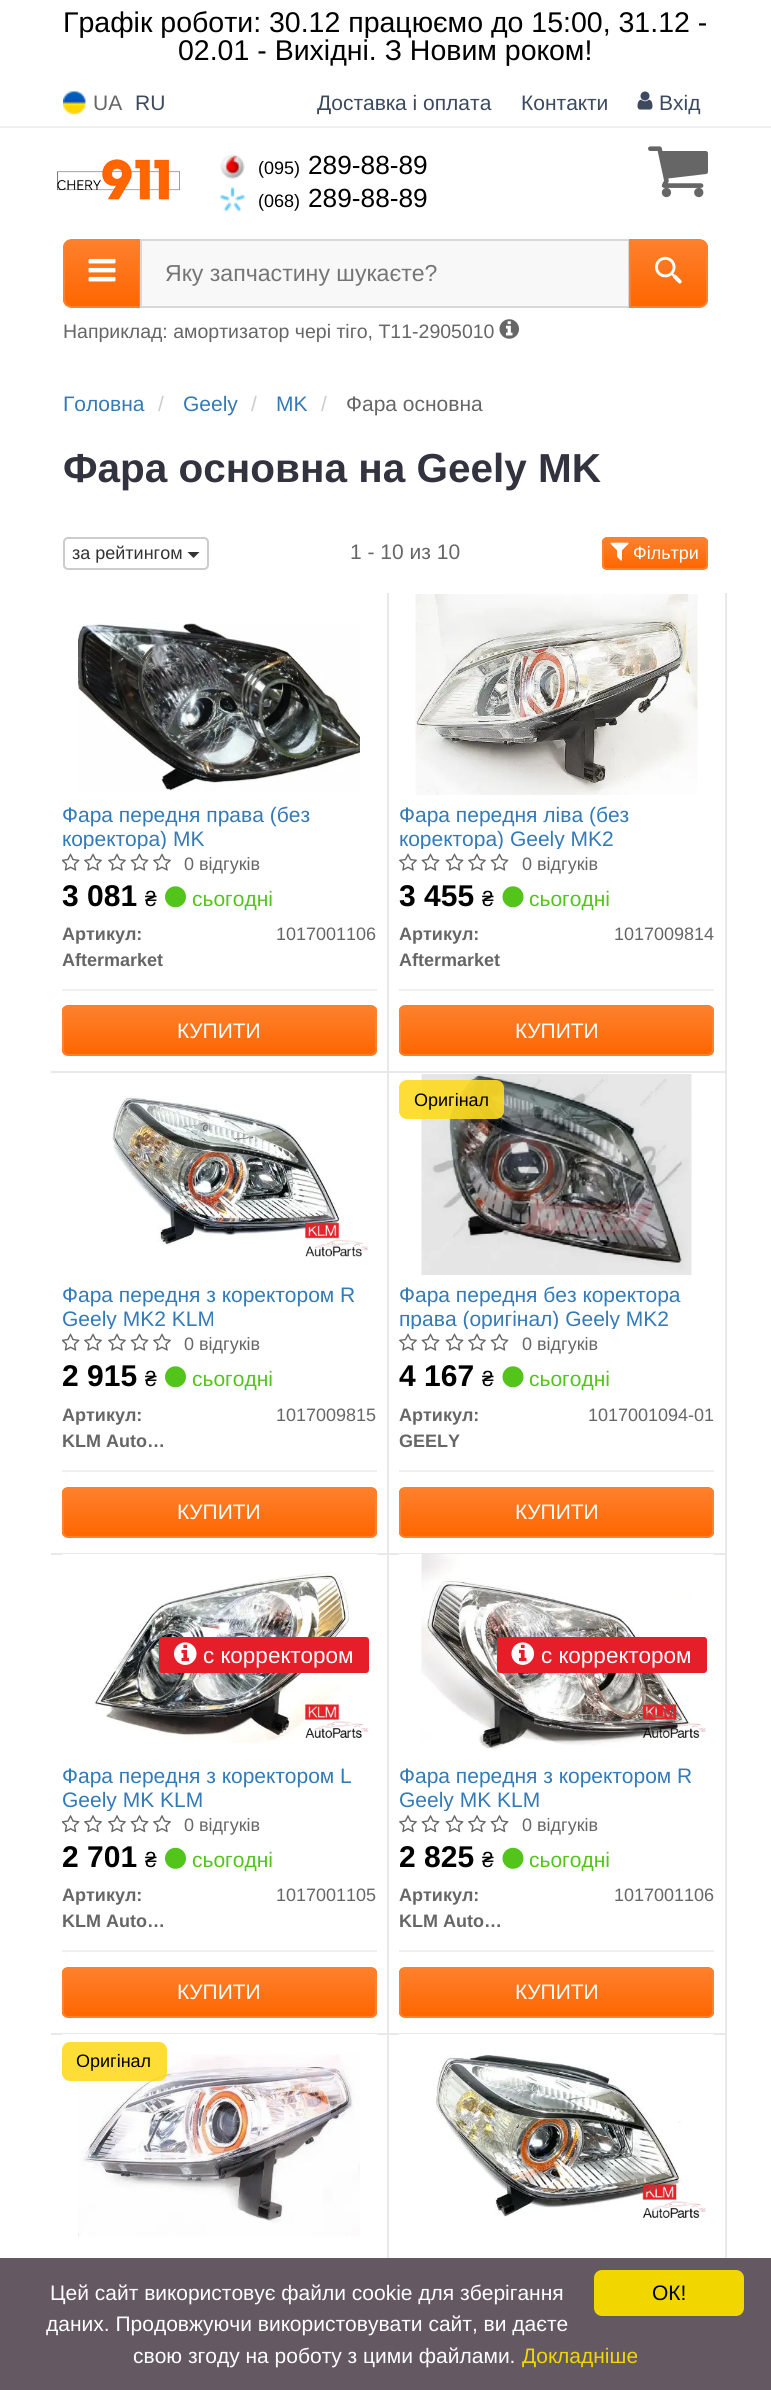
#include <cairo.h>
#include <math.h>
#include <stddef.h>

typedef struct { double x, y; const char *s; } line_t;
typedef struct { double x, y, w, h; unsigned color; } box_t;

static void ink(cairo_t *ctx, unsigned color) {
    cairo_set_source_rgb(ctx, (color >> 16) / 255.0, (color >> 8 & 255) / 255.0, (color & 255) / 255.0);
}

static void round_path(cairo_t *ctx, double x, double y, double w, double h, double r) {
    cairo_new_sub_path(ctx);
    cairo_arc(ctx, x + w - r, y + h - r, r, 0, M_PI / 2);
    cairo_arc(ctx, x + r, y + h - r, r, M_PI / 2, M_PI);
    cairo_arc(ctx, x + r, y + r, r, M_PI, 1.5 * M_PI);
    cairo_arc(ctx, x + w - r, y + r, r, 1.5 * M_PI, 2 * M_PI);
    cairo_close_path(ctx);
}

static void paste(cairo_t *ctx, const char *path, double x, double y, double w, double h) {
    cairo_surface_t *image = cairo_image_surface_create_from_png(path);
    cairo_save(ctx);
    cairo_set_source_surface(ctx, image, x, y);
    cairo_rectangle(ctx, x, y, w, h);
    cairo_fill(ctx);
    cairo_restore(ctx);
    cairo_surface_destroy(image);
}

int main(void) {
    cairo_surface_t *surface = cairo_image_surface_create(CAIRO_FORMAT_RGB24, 771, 2390);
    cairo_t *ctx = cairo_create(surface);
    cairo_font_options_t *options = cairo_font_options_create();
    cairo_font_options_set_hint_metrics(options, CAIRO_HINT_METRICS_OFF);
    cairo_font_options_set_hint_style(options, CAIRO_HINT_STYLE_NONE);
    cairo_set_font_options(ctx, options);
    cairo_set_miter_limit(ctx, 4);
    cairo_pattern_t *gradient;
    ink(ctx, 0xFFFFFF);
    cairo_paint(ctx);
    cairo_select_font_face(ctx, "Liberation Sans", CAIRO_FONT_SLANT_NORMAL, CAIRO_FONT_WEIGHT_NORMAL);
    cairo_set_font_size(ctx, 28.5);
    ink(ctx, 0x000000);
    cairo_move_to(ctx, 63, 32);
    cairo_show_text(ctx, "Графік роботи: 30.12 працюємо до 15:00, 31.12 -");
    cairo_move_to(ctx, 178, 60);
    cairo_show_text(ctx, "02.01 - Вихідні. З Новим роком!");
    ink(ctx, 0xEFEFEF);
    cairo_rectangle(ctx, 0, 126, 771, 2);
    cairo_fill(ctx);
    paste(ctx, "media/1.png", 63, 91, 23, 24);
    cairo_set_font_size(ctx, 21);
    ink(ctx, 0x666666);
    cairo_move_to(ctx, 93, 110);
    cairo_show_text(ctx, "UA");
    ink(ctx, 0x3C495F);
    {
        static const line_t items[] = {
            {135, 110, "RU"},
            {317, 110, "Доставка і оплата"},
            {521, 110, "Контакти"},
        };
        for (size_t i = 0; i < sizeof items / sizeof *items; i++) {
            cairo_move_to(ctx, items[i].x, items[i].y);
            cairo_show_text(ctx, items[i].s);
        }
    }
    paste(ctx, "media/2.png", 637, 91, 16, 19);
    cairo_move_to(ctx, 659, 110);
    cairo_show_text(ctx, "Вхід");
    paste(ctx, "media/3.png", 57, 159, 123, 41);
    paste(ctx, "media/4.png", 220, 154, 25, 25);
    cairo_set_font_size(ctx, 18);
    ink(ctx, 0x000000);
    cairo_move_to(ctx, 258, 174);
    cairo_show_text(ctx, "(095)");
    cairo_set_font_size(ctx, 26.25);
    cairo_move_to(ctx, 308, 174);
    cairo_show_text(ctx, "289-88-89");
    paste(ctx, "media/5.png", 220, 187, 25, 25);
    cairo_set_font_size(ctx, 18);
    cairo_move_to(ctx, 258, 207);
    cairo_show_text(ctx, "(068)");
    cairo_set_font_size(ctx, 26.25);
    cairo_move_to(ctx, 308, 207);
    cairo_show_text(ctx, "289-88-89");
    paste(ctx, "media/6.png", 648, 146, 60, 52);
    cairo_save(ctx);
    cairo_new_path(ctx);
    cairo_move_to(ctx, 72, 239);
    cairo_line_to(ctx, 141, 239);
    cairo_line_to(ctx, 141, 308);
    cairo_line_to(ctx, 72, 308);
    cairo_curve_to(ctx, 67, 308, 63, 304, 63, 299);
    cairo_line_to(ctx, 63, 248);
    cairo_curve_to(ctx, 63, 243, 67, 239, 72, 239);
    cairo_close_path(ctx);
    cairo_clip(ctx);
    gradient = cairo_pattern_create_linear(102, 240, 102, 306);
    cairo_pattern_add_color_stop_rgba(gradient, 0, 0.992, 0.502, 0.176, 1);
    cairo_pattern_add_color_stop_rgba(gradient, 1, 1, 0.4, 0, 1);
    cairo_set_source(ctx, gradient);
    cairo_pattern_destroy(gradient);
    cairo_rectangle(ctx, 63, 240, 76, 66);
    cairo_fill(ctx);
    cairo_restore(ctx);
    cairo_new_path(ctx);
    cairo_move_to(ctx, 72, 240);
    cairo_line_to(ctx, 140, 240);
    cairo_line_to(ctx, 140, 307);
    cairo_line_to(ctx, 72, 307);
    cairo_curve_to(ctx, 67.5, 307, 64, 303.5, 64, 299);
    cairo_line_to(ctx, 64, 248);
    cairo_curve_to(ctx, 64, 243.5, 67.5, 240, 72, 240);
    cairo_close_path(ctx);
    ink(ctx, 0xFD802D);
    cairo_stroke(ctx);
    paste(ctx, "media/7.png", 88, 258, 28, 24);
    ink(ctx, 0xF8F8F8);
    cairo_rectangle(ctx, 141, 240, 488, 67);
    cairo_fill_preserve(ctx);
    ink(ctx, 0xD8D8D8);
    cairo_stroke(ctx);
    cairo_set_font_size(ctx, 23.1);
    ink(ctx, 0x757575);
    cairo_move_to(ctx, 165, 281);
    cairo_show_text(ctx, "Яку запчастину шукаєте?");
    cairo_save(ctx);
    cairo_new_path(ctx);
    cairo_move_to(ctx, 629, 239);
    cairo_line_to(ctx, 699, 239);
    cairo_curve_to(ctx, 704, 239, 708, 243, 708, 248);
    cairo_line_to(ctx, 708, 299);
    cairo_curve_to(ctx, 708, 304, 704, 308, 699, 308);
    cairo_line_to(ctx, 629, 308);
    cairo_close_path(ctx);
    cairo_clip(ctx);
    gradient = cairo_pattern_create_linear(668, 240, 668, 306);
    cairo_pattern_add_color_stop_rgba(gradient, 0, 0.992, 0.502, 0.176, 1);
    cairo_pattern_add_color_stop_rgba(gradient, 1, 1, 0.4, 0, 1);
    cairo_set_source(ctx, gradient);
    cairo_pattern_destroy(gradient);
    cairo_rectangle(ctx, 631, 240, 77, 66);
    cairo_fill(ctx);
    cairo_restore(ctx);
    cairo_new_path(ctx);
    cairo_move_to(ctx, 630, 240);
    cairo_line_to(ctx, 699, 240);
    cairo_curve_to(ctx, 703.5, 240, 707, 243.5, 707, 248);
    cairo_line_to(ctx, 707, 299);
    cairo_curve_to(ctx, 707, 303.5, 703.5, 307, 699, 307);
    cairo_line_to(ctx, 630, 307);
    cairo_close_path(ctx);
    ink(ctx, 0xFD802D);
    cairo_stroke(ctx);
    paste(ctx, "media/8.png", 655, 256, 27, 28);
    cairo_set_font_size(ctx, 19.5);
    ink(ctx, 0x666666);
    cairo_move_to(ctx, 63, 338);
    cairo_show_text(ctx, "Наприклад: амортизатор чері тіго, T11-2905010");
    paste(ctx, "media/9.png", 499, 319, 20, 20);
    cairo_set_font_size(ctx, 21);
    ink(ctx, 0x337AB7);
    cairo_move_to(ctx, 63, 411);
    cairo_show_text(ctx, "Головна");
    ink(ctx, 0xCCCCCC);
    cairo_move_to(ctx, 158, 411);
    cairo_show_text(ctx, "/");
    ink(ctx, 0x337AB7);
    cairo_move_to(ctx, 183, 411);
    cairo_show_text(ctx, "Geely");
    ink(ctx, 0xCCCCCC);
    cairo_move_to(ctx, 251, 411);
    cairo_show_text(ctx, "/");
    ink(ctx, 0x337AB7);
    cairo_move_to(ctx, 276, 411);
    cairo_show_text(ctx, "MK");
    ink(ctx, 0xCCCCCC);
    cairo_move_to(ctx, 321, 411);
    cairo_show_text(ctx, "/");
    ink(ctx, 0x666666);
    cairo_move_to(ctx, 346, 411);
    cairo_show_text(ctx, "Фара основна");
    cairo_select_font_face(ctx, "Liberation Sans", CAIRO_FONT_SLANT_NORMAL, CAIRO_FONT_WEIGHT_BOLD);
    cairo_set_font_size(ctx, 40.5);
    ink(ctx, 0x33333F);
    cairo_move_to(ctx, 63, 482);
    cairo_show_text(ctx, "Фара основна на Geely MK");
    round_path(ctx, 64, 538, 144, 31, 4);
    ink(ctx, 0xCCCCCC);
    cairo_stroke(ctx);
    cairo_select_font_face(ctx, "Liberation Sans", CAIRO_FONT_SLANT_NORMAL, CAIRO_FONT_WEIGHT_NORMAL);
    cairo_set_font_size(ctx, 18);
    ink(ctx, 0x333333);
    cairo_move_to(ctx, 72, 559);
    cairo_show_text(ctx, "за рейтингом");
    cairo_new_path(ctx);
    cairo_move_to(ctx, 187.5, 552);
    cairo_line_to(ctx, 199.5, 552);
    cairo_line_to(ctx, 193.5, 558);
    cairo_close_path(ctx);
    cairo_fill(ctx);
    cairo_set_font_size(ctx, 21);
    ink(ctx, 0x666666);
    cairo_move_to(ctx, 350, 559);
    cairo_show_text(ctx, "1 - 10 из 10");
    cairo_save(ctx);
    round_path(ctx, 602, 537, 106, 33, 5);
    cairo_clip(ctx);
    gradient = cairo_pattern_create_linear(655, 539, 655, 569);
    cairo_pattern_add_color_stop_rgba(gradient, 0, 0.992, 0.502, 0.176, 1);
    cairo_pattern_add_color_stop_rgba(gradient, 1, 1, 0.4, 0, 1);
    cairo_set_source(ctx, gradient);
    cairo_pattern_destroy(gradient);
    cairo_rectangle(ctx, 602, 539, 106, 30);
    cairo_fill(ctx);
    cairo_restore(ctx);
    round_path(ctx, 603, 538, 104, 31, 4);
    ink(ctx, 0xFD802D);
    cairo_stroke(ctx);
    paste(ctx, "media/10.png", 610, 542, 19, 19);
    cairo_set_font_size(ctx, 18);
    ink(ctx, 0xFFFFFF);
    cairo_move_to(ctx, 633, 559);
    cairo_show_text(ctx, "Фільтри");
    ink(ctx, 0xE9E9E9);
    cairo_rectangle(ctx, 387, 593, 2, 961);
    cairo_fill(ctx);
    cairo_rectangle(ctx, 51, 1071, 338, 2);
    cairo_fill(ctx);
    paste(ctx, "media/11.png", 78, 623, 282, 168);
    cairo_set_font_size(ctx, 21);
    ink(ctx, 0x337AB7);
    cairo_move_to(ctx, 62, 822);
    cairo_show_text(ctx, "Фара передня права (без");
    cairo_save(ctx);
    cairo_rectangle(ctx, 62, 803, 315, 46);
    cairo_clip(ctx);
    cairo_move_to(ctx, 62, 846);
    cairo_show_text(ctx, "коректора) MK");
    cairo_restore(ctx);
    paste(ctx, "media/12.png", 62, 853, 18, 18);
    paste(ctx, "media/13.png", 84, 853, 18, 18);
    paste(ctx, "media/13.png", 108, 853, 18, 18);
    paste(ctx, "media/14.png", 130, 853, 19, 18);
    paste(ctx, "media/13.png", 153, 853, 18, 18);
    cairo_set_font_size(ctx, 18);
    ink(ctx, 0x666666);
    cairo_move_to(ctx, 184, 870);
    cairo_show_text(ctx, "0 відгуків");
    cairo_select_font_face(ctx, "Liberation Sans", CAIRO_FONT_SLANT_NORMAL, CAIRO_FONT_WEIGHT_BOLD);
    cairo_set_font_size(ctx, 30);
    ink(ctx, 0x000000);
    cairo_move_to(ctx, 62, 906);
    cairo_show_text(ctx, "3 081");
    cairo_select_font_face(ctx, "Liberation Sans", CAIRO_FONT_SLANT_NORMAL, CAIRO_FONT_WEIGHT_NORMAL);
    cairo_set_font_size(ctx, 21);
    cairo_move_to(ctx, 145, 906);
    cairo_show_text(ctx, "₴");
    paste(ctx, "media/15.png", 165, 886, 21, 22);
    ink(ctx, 0x52C41A);
    cairo_move_to(ctx, 192, 906);
    cairo_show_text(ctx, "сьогодні");
    cairo_select_font_face(ctx, "Liberation Sans", CAIRO_FONT_SLANT_NORMAL, CAIRO_FONT_WEIGHT_BOLD);
    cairo_set_font_size(ctx, 18);
    ink(ctx, 0x666666);
    cairo_move_to(ctx, 62, 940);
    cairo_show_text(ctx, "Артикул:");
    cairo_select_font_face(ctx, "Liberation Sans", CAIRO_FONT_SLANT_NORMAL, CAIRO_FONT_WEIGHT_NORMAL);
    cairo_move_to(ctx, 276, 940);
    cairo_show_text(ctx, "1017001106");
    cairo_select_font_face(ctx, "Liberation Sans", CAIRO_FONT_SLANT_NORMAL, CAIRO_FONT_WEIGHT_BOLD);
    cairo_move_to(ctx, 62, 966);
    cairo_show_text(ctx, "Aftermarket");
    ink(ctx, 0xEFEFEF);
    cairo_rectangle(ctx, 62, 989, 315, 2);
    cairo_fill(ctx);
    cairo_save(ctx);
    round_path(ctx, 62, 1005, 315, 51, 6);
    cairo_clip(ctx);
    gradient = cairo_pattern_create_linear(219, 1007, 219, 1055);
    cairo_pattern_add_color_stop_rgba(gradient, 0, 0.992, 0.502, 0.176, 1);
    cairo_pattern_add_color_stop_rgba(gradient, 1, 1, 0.4, 0, 1);
    cairo_set_source(ctx, gradient);
    cairo_pattern_destroy(gradient);
    cairo_rectangle(ctx, 62, 1007, 315, 48);
    cairo_fill(ctx);
    cairo_restore(ctx);
    round_path(ctx, 63, 1006, 313, 49, 5);
    ink(ctx, 0xFD802D);
    cairo_stroke(ctx);
    cairo_select_font_face(ctx, "Liberation Sans", CAIRO_FONT_SLANT_NORMAL, CAIRO_FONT_WEIGHT_NORMAL);
    cairo_set_font_size(ctx, 21);
    ink(ctx, 0xFFFFFF);
    cairo_move_to(ctx, 177, 1038);
    cairo_show_text(ctx, "КУПИТИ");
    ink(ctx, 0xE9E9E9);
    cairo_rectangle(ctx, 725, 593, 2, 961);
    cairo_fill(ctx);
    cairo_rectangle(ctx, 389, 1071, 337, 2);
    cairo_fill(ctx);
    paste(ctx, "media/16.png", 415, 594, 283, 201);
    ink(ctx, 0x337AB7);
    cairo_move_to(ctx, 399, 822);
    cairo_show_text(ctx, "Фара передня ліва (без");
    cairo_save(ctx);
    cairo_rectangle(ctx, 399, 803, 315, 46);
    cairo_clip(ctx);
    cairo_move_to(ctx, 399, 846);
    cairo_show_text(ctx, "коректора) Geely MK2");
    cairo_restore(ctx);
    paste(ctx, "media/13.png", 399, 853, 18, 18);
    paste(ctx, "media/14.png", 421, 853, 19, 18);
    paste(ctx, "media/14.png", 445, 853, 19, 18);
    paste(ctx, "media/13.png", 468, 853, 18, 18);
    paste(ctx, "media/14.png", 490, 853, 19, 18);
    cairo_set_font_size(ctx, 18);
    ink(ctx, 0x666666);
    cairo_move_to(ctx, 522, 870);
    cairo_show_text(ctx, "0 відгуків");
    cairo_select_font_face(ctx, "Liberation Sans", CAIRO_FONT_SLANT_NORMAL, CAIRO_FONT_WEIGHT_BOLD);
    cairo_set_font_size(ctx, 30);
    ink(ctx, 0x000000);
    cairo_move_to(ctx, 399, 906);
    cairo_show_text(ctx, "3 455");
    cairo_select_font_face(ctx, "Liberation Sans", CAIRO_FONT_SLANT_NORMAL, CAIRO_FONT_WEIGHT_NORMAL);
    cairo_set_font_size(ctx, 21);
    cairo_move_to(ctx, 482, 906);
    cairo_show_text(ctx, "₴");
    paste(ctx, "media/17.png", 502, 886, 22, 22);
    ink(ctx, 0x52C41A);
    cairo_move_to(ctx, 529, 906);
    cairo_show_text(ctx, "сьогодні");
    cairo_select_font_face(ctx, "Liberation Sans", CAIRO_FONT_SLANT_NORMAL, CAIRO_FONT_WEIGHT_BOLD);
    cairo_set_font_size(ctx, 18);
    ink(ctx, 0x666666);
    cairo_move_to(ctx, 399, 940);
    cairo_show_text(ctx, "Артикул:");
    cairo_select_font_face(ctx, "Liberation Sans", CAIRO_FONT_SLANT_NORMAL, CAIRO_FONT_WEIGHT_NORMAL);
    cairo_move_to(ctx, 614, 940);
    cairo_show_text(ctx, "1017009814");
    cairo_select_font_face(ctx, "Liberation Sans", CAIRO_FONT_SLANT_NORMAL, CAIRO_FONT_WEIGHT_BOLD);
    cairo_move_to(ctx, 399, 966);
    cairo_show_text(ctx, "Aftermarket");
    ink(ctx, 0xEFEFEF);
    cairo_rectangle(ctx, 399, 989, 315, 2);
    cairo_fill(ctx);
    cairo_save(ctx);
    round_path(ctx, 399, 1005, 315, 51, 6);
    cairo_clip(ctx);
    gradient = cairo_pattern_create_linear(557, 1007, 557, 1055);
    cairo_pattern_add_color_stop_rgba(gradient, 0, 0.992, 0.502, 0.176, 1);
    cairo_pattern_add_color_stop_rgba(gradient, 1, 1, 0.4, 0, 1);
    cairo_set_source(ctx, gradient);
    cairo_pattern_destroy(gradient);
    cairo_rectangle(ctx, 399, 1007, 315, 48);
    cairo_fill(ctx);
    cairo_restore(ctx);
    round_path(ctx, 400, 1006, 313, 49, 5);
    ink(ctx, 0xFD802D);
    cairo_stroke(ctx);
    cairo_select_font_face(ctx, "Liberation Sans", CAIRO_FONT_SLANT_NORMAL, CAIRO_FONT_WEIGHT_NORMAL);
    cairo_set_font_size(ctx, 21);
    ink(ctx, 0xFFFFFF);
    cairo_move_to(ctx, 515, 1038);
    cairo_show_text(ctx, "КУПИТИ");
    ink(ctx, 0xE9E9E9);
    cairo_rectangle(ctx, 51, 1553, 675, 2);
    cairo_fill(ctx);
    paste(ctx, "media/18.png", 112, 1096, 228, 150);
    paste(ctx, "media/19.png", 305, 1222, 64, 35);
    ink(ctx, 0x337AB7);
    cairo_move_to(ctx, 62, 1302);
    cairo_show_text(ctx, "Фара передня з коректором R");
    cairo_save(ctx);
    cairo_rectangle(ctx, 62, 1283, 315, 46);
    cairo_clip(ctx);
    cairo_move_to(ctx, 62, 1326);
    cairo_show_text(ctx, "Geely MK2 KLM");
    cairo_restore(ctx);
    paste(ctx, "media/12.png", 62, 1333, 18, 18);
    paste(ctx, "media/13.png", 84, 1333, 18, 18);
    paste(ctx, "media/13.png", 108, 1333, 18, 18);
    paste(ctx, "media/14.png", 130, 1333, 19, 18);
    paste(ctx, "media/13.png", 153, 1333, 18, 18);
    cairo_set_font_size(ctx, 18);
    ink(ctx, 0x666666);
    cairo_move_to(ctx, 184, 1350);
    cairo_show_text(ctx, "0 відгуків");
    cairo_select_font_face(ctx, "Liberation Sans", CAIRO_FONT_SLANT_NORMAL, CAIRO_FONT_WEIGHT_BOLD);
    cairo_set_font_size(ctx, 30);
    ink(ctx, 0x000000);
    cairo_move_to(ctx, 62, 1386);
    cairo_show_text(ctx, "2 915");
    cairo_select_font_face(ctx, "Liberation Sans", CAIRO_FONT_SLANT_NORMAL, CAIRO_FONT_WEIGHT_NORMAL);
    cairo_set_font_size(ctx, 21);
    cairo_move_to(ctx, 145, 1386);
    cairo_show_text(ctx, "₴");
    paste(ctx, "media/15.png", 165, 1366, 21, 22);
    ink(ctx, 0x52C41A);
    cairo_move_to(ctx, 192, 1386);
    cairo_show_text(ctx, "сьогодні");
    cairo_select_font_face(ctx, "Liberation Sans", CAIRO_FONT_SLANT_NORMAL, CAIRO_FONT_WEIGHT_BOLD);
    cairo_set_font_size(ctx, 18);
    ink(ctx, 0x666666);
    cairo_move_to(ctx, 62, 1421);
    cairo_show_text(ctx, "Артикул:");
    cairo_select_font_face(ctx, "Liberation Sans", CAIRO_FONT_SLANT_NORMAL, CAIRO_FONT_WEIGHT_NORMAL);
    cairo_move_to(ctx, 276, 1421);
    cairo_show_text(ctx, "1017009815");
    cairo_select_font_face(ctx, "Liberation Sans", CAIRO_FONT_SLANT_NORMAL, CAIRO_FONT_WEIGHT_BOLD);
    cairo_move_to(ctx, 62, 1447);
    cairo_show_text(ctx, "KLM Auto…");
    ink(ctx, 0xEFEFEF);
    cairo_rectangle(ctx, 62, 1470, 315, 2);
    cairo_fill(ctx);
    cairo_save(ctx);
    round_path(ctx, 62, 1487, 315, 51, 6);
    cairo_clip(ctx);
    gradient = cairo_pattern_create_linear(219, 1488, 219, 1536);
    cairo_pattern_add_color_stop_rgba(gradient, 0, 0.992, 0.502, 0.176, 1);
    cairo_pattern_add_color_stop_rgba(gradient, 1, 1, 0.4, 0, 1);
    cairo_set_source(ctx, gradient);
    cairo_pattern_destroy(gradient);
    cairo_rectangle(ctx, 62, 1488, 315, 48);
    cairo_fill(ctx);
    cairo_restore(ctx);
    round_path(ctx, 63, 1488, 313, 49, 5);
    ink(ctx, 0xFD802D);
    cairo_stroke(ctx);
    cairo_select_font_face(ctx, "Liberation Sans", CAIRO_FONT_SLANT_NORMAL, CAIRO_FONT_WEIGHT_NORMAL);
    cairo_set_font_size(ctx, 21);
    ink(ctx, 0xFFFFFF);
    cairo_move_to(ctx, 177, 1519);
    cairo_show_text(ctx, "КУПИТИ");
    paste(ctx, "media/20.png", 421, 1074, 271, 201);
    cairo_set_source_rgba(ctx, 0.992, 0.855, 0.129, 0.9);
    round_path(ctx, 399, 1080, 105, 39, 8);
    cairo_fill(ctx);
    cairo_set_font_size(ctx, 18);
    ink(ctx, 0x000000);
    cairo_move_to(ctx, 414, 1106);
    cairo_show_text(ctx, "Оригінал");
    cairo_set_font_size(ctx, 21);
    ink(ctx, 0x337AB7);
    cairo_move_to(ctx, 399, 1302);
    cairo_show_text(ctx, "Фара передня без коректора");
    cairo_save(ctx);
    cairo_rectangle(ctx, 399, 1283, 315, 46);
    cairo_clip(ctx);
    cairo_move_to(ctx, 399, 1326);
    cairo_show_text(ctx, "права (оригінал) Geely MK2");
    cairo_restore(ctx);
    paste(ctx, "media/13.png", 399, 1333, 18, 18);
    paste(ctx, "media/14.png", 421, 1333, 19, 18);
    paste(ctx, "media/14.png", 445, 1333, 19, 18);
    paste(ctx, "media/13.png", 468, 1333, 18, 18);
    paste(ctx, "media/14.png", 490, 1333, 19, 18);
    cairo_set_font_size(ctx, 18);
    ink(ctx, 0x666666);
    cairo_move_to(ctx, 522, 1350);
    cairo_show_text(ctx, "0 відгуків");
    cairo_select_font_face(ctx, "Liberation Sans", CAIRO_FONT_SLANT_NORMAL, CAIRO_FONT_WEIGHT_BOLD);
    cairo_set_font_size(ctx, 30);
    ink(ctx, 0x000000);
    cairo_move_to(ctx, 399, 1386);
    cairo_show_text(ctx, "4 167");
    cairo_select_font_face(ctx, "Liberation Sans", CAIRO_FONT_SLANT_NORMAL, CAIRO_FONT_WEIGHT_NORMAL);
    cairo_set_font_size(ctx, 21);
    cairo_move_to(ctx, 482, 1386);
    cairo_show_text(ctx, "₴");
    paste(ctx, "media/17.png", 502, 1366, 22, 22);
    ink(ctx, 0x52C41A);
    cairo_move_to(ctx, 529, 1386);
    cairo_show_text(ctx, "сьогодні");
    cairo_select_font_face(ctx, "Liberation Sans", CAIRO_FONT_SLANT_NORMAL, CAIRO_FONT_WEIGHT_BOLD);
    cairo_set_font_size(ctx, 18);
    ink(ctx, 0x666666);
    cairo_move_to(ctx, 399, 1421);
    cairo_show_text(ctx, "Артикул:");
    cairo_select_font_face(ctx, "Liberation Sans", CAIRO_FONT_SLANT_NORMAL, CAIRO_FONT_WEIGHT_NORMAL);
    cairo_move_to(ctx, 588, 1421);
    cairo_show_text(ctx, "1017001094-01");
    cairo_select_font_face(ctx, "Liberation Sans", CAIRO_FONT_SLANT_NORMAL, CAIRO_FONT_WEIGHT_BOLD);
    cairo_move_to(ctx, 399, 1447);
    cairo_show_text(ctx, "GEELY");
    ink(ctx, 0xEFEFEF);
    cairo_rectangle(ctx, 399, 1470, 315, 2);
    cairo_fill(ctx);
    cairo_save(ctx);
    round_path(ctx, 399, 1487, 315, 51, 6);
    cairo_clip(ctx);
    gradient = cairo_pattern_create_linear(557, 1488, 557, 1536);
    cairo_pattern_add_color_stop_rgba(gradient, 0, 0.992, 0.502, 0.176, 1);
    cairo_pattern_add_color_stop_rgba(gradient, 1, 1, 0.4, 0, 1);
    cairo_set_source(ctx, gradient);
    cairo_pattern_destroy(gradient);
    cairo_rectangle(ctx, 399, 1488, 315, 48);
    cairo_fill(ctx);
    cairo_restore(ctx);
    round_path(ctx, 400, 1488, 313, 49, 5);
    ink(ctx, 0xFD802D);
    cairo_stroke(ctx);
    cairo_select_font_face(ctx, "Liberation Sans", CAIRO_FONT_SLANT_NORMAL, CAIRO_FONT_WEIGHT_NORMAL);
    cairo_set_font_size(ctx, 21);
    ink(ctx, 0xFFFFFF);
    cairo_move_to(ctx, 515, 1519);
    cairo_show_text(ctx, "КУПИТИ");
    {
        static const box_t items[] = {
            {387, 1554, 2, 480, 0xE9E9E9},
            {51, 2033, 338, 2, 0xE9E9E9},
            {62, 1554, 315, 1, 0xFFFFFF},
        };
        for (size_t i = 0; i < sizeof items / sizeof *items; i++) {
            ink(ctx, items[i].color);
            cairo_rectangle(ctx, items[i].x, items[i].y, items[i].w, items[i].h);
            cairo_fill(ctx);
        }
    }
    paste(ctx, "media/21.png", 94, 1571, 255, 174);
    paste(ctx, "media/22.png", 305, 1704, 64, 34);
    ink(ctx, 0xE51E2A);
    round_path(ctx, 159, 1637, 210, 36, 3);
    cairo_fill(ctx);
    paste(ctx, "media/23.png", 174, 1642, 23, 23);
    cairo_set_font_size(ctx, 22.5);
    ink(ctx, 0xFFFFFF);
    cairo_move_to(ctx, 203, 1663);
    cairo_show_text(ctx, "с корректором");
    cairo_set_font_size(ctx, 21);
    ink(ctx, 0x337AB7);
    cairo_move_to(ctx, 62, 1783);
    cairo_show_text(ctx, "Фара передня з коректором L");
    cairo_save(ctx);
    cairo_rectangle(ctx, 62, 1764, 315, 47);
    cairo_clip(ctx);
    cairo_move_to(ctx, 62, 1807);
    cairo_show_text(ctx, "Geely MK KLM");
    cairo_restore(ctx);
    paste(ctx, "media/24.png", 62, 1815, 18, 18);
    paste(ctx, "media/25.png", 84, 1815, 18, 18);
    paste(ctx, "media/25.png", 108, 1815, 18, 18);
    paste(ctx, "media/26.png", 130, 1815, 19, 18);
    paste(ctx, "media/25.png", 153, 1815, 18, 18);
    cairo_set_font_size(ctx, 18);
    ink(ctx, 0x666666);
    cairo_move_to(ctx, 184, 1831);
    cairo_show_text(ctx, "0 відгуків");
    cairo_select_font_face(ctx, "Liberation Sans", CAIRO_FONT_SLANT_NORMAL, CAIRO_FONT_WEIGHT_BOLD);
    cairo_set_font_size(ctx, 30);
    ink(ctx, 0x000000);
    cairo_move_to(ctx, 62, 1867);
    cairo_show_text(ctx, "2 701");
    cairo_select_font_face(ctx, "Liberation Sans", CAIRO_FONT_SLANT_NORMAL, CAIRO_FONT_WEIGHT_NORMAL);
    cairo_set_font_size(ctx, 21);
    cairo_move_to(ctx, 145, 1867);
    cairo_show_text(ctx, "₴");
    paste(ctx, "media/27.png", 165, 1847, 21, 22);
    ink(ctx, 0x52C41A);
    cairo_move_to(ctx, 192, 1867);
    cairo_show_text(ctx, "сьогодні");
    cairo_select_font_face(ctx, "Liberation Sans", CAIRO_FONT_SLANT_NORMAL, CAIRO_FONT_WEIGHT_BOLD);
    cairo_set_font_size(ctx, 18);
    ink(ctx, 0x666666);
    cairo_move_to(ctx, 62, 1901);
    cairo_show_text(ctx, "Артикул:");
    cairo_select_font_face(ctx, "Liberation Sans", CAIRO_FONT_SLANT_NORMAL, CAIRO_FONT_WEIGHT_NORMAL);
    cairo_move_to(ctx, 276, 1901);
    cairo_show_text(ctx, "1017001105");
    cairo_select_font_face(ctx, "Liberation Sans", CAIRO_FONT_SLANT_NORMAL, CAIRO_FONT_WEIGHT_BOLD);
    cairo_move_to(ctx, 62, 1927);
    cairo_show_text(ctx, "KLM Auto…");
    ink(ctx, 0xEFEFEF);
    cairo_rectangle(ctx, 62, 1950, 315, 2);
    cairo_fill(ctx);
    cairo_save(ctx);
    round_path(ctx, 62, 1967, 315, 51, 6);
    cairo_clip(ctx);
    gradient = cairo_pattern_create_linear(219, 1968, 219, 2016);
    cairo_pattern_add_color_stop_rgba(gradient, 0, 0.992, 0.502, 0.176, 1);
    cairo_pattern_add_color_stop_rgba(gradient, 1, 1, 0.4, 0, 1);
    cairo_set_source(ctx, gradient);
    cairo_pattern_destroy(gradient);
    cairo_rectangle(ctx, 62, 1968, 315, 48);
    cairo_fill(ctx);
    cairo_restore(ctx);
    round_path(ctx, 63, 1968, 313, 49, 5);
    ink(ctx, 0xFD802D);
    cairo_stroke(ctx);
    cairo_select_font_face(ctx, "Liberation Sans", CAIRO_FONT_SLANT_NORMAL, CAIRO_FONT_WEIGHT_NORMAL);
    cairo_set_font_size(ctx, 21);
    ink(ctx, 0xFFFFFF);
    cairo_move_to(ctx, 177, 1999);
    cairo_show_text(ctx, "КУПИТИ");
    {
        static const box_t items[] = {
            {725, 1554, 2, 480, 0xE9E9E9},
            {389, 2033, 337, 2, 0xE9E9E9},
            {399, 1554, 315, 1, 0xFFFFFF},
        };
        for (size_t i = 0; i < sizeof items / sizeof *items; i++) {
            ink(ctx, items[i].color);
            cairo_rectangle(ctx, items[i].x, items[i].y, items[i].w, items[i].h);
            cairo_fill(ctx);
        }
    }
    paste(ctx, "media/28.png", 421, 1554, 270, 196);
    paste(ctx, "media/29.png", 642, 1704, 64, 34);
    ink(ctx, 0xE51E2A);
    round_path(ctx, 497, 1637, 210, 36, 3);
    cairo_fill(ctx);
    paste(ctx, "media/30.png", 511, 1642, 23, 23);
    cairo_set_font_size(ctx, 22.5);
    ink(ctx, 0xFFFFFF);
    cairo_move_to(ctx, 541, 1663);
    cairo_show_text(ctx, "с корректором");
    cairo_set_font_size(ctx, 21);
    ink(ctx, 0x337AB7);
    cairo_move_to(ctx, 399, 1783);
    cairo_show_text(ctx, "Фара передня з коректором R");
    cairo_save(ctx);
    cairo_rectangle(ctx, 399, 1764, 315, 47);
    cairo_clip(ctx);
    cairo_move_to(ctx, 399, 1807);
    cairo_show_text(ctx, "Geely MK KLM");
    cairo_restore(ctx);
    paste(ctx, "media/25.png", 399, 1815, 18, 18);
    paste(ctx, "media/26.png", 421, 1815, 19, 18);
    paste(ctx, "media/26.png", 445, 1815, 19, 18);
    paste(ctx, "media/25.png", 468, 1815, 18, 18);
    paste(ctx, "media/26.png", 490, 1815, 19, 18);
    cairo_set_font_size(ctx, 18);
    ink(ctx, 0x666666);
    cairo_move_to(ctx, 522, 1831);
    cairo_show_text(ctx, "0 відгуків");
    cairo_select_font_face(ctx, "Liberation Sans", CAIRO_FONT_SLANT_NORMAL, CAIRO_FONT_WEIGHT_BOLD);
    cairo_set_font_size(ctx, 30);
    ink(ctx, 0x000000);
    cairo_move_to(ctx, 399, 1867);
    cairo_show_text(ctx, "2 825");
    cairo_select_font_face(ctx, "Liberation Sans", CAIRO_FONT_SLANT_NORMAL, CAIRO_FONT_WEIGHT_NORMAL);
    cairo_set_font_size(ctx, 21);
    cairo_move_to(ctx, 482, 1867);
    cairo_show_text(ctx, "₴");
    paste(ctx, "media/31.png", 502, 1847, 22, 22);
    ink(ctx, 0x52C41A);
    cairo_move_to(ctx, 529, 1867);
    cairo_show_text(ctx, "сьогодні");
    cairo_select_font_face(ctx, "Liberation Sans", CAIRO_FONT_SLANT_NORMAL, CAIRO_FONT_WEIGHT_BOLD);
    cairo_set_font_size(ctx, 18);
    ink(ctx, 0x666666);
    cairo_move_to(ctx, 399, 1901);
    cairo_show_text(ctx, "Артикул:");
    cairo_select_font_face(ctx, "Liberation Sans", CAIRO_FONT_SLANT_NORMAL, CAIRO_FONT_WEIGHT_NORMAL);
    cairo_move_to(ctx, 614, 1901);
    cairo_show_text(ctx, "1017001106");
    cairo_select_font_face(ctx, "Liberation Sans", CAIRO_FONT_SLANT_NORMAL, CAIRO_FONT_WEIGHT_BOLD);
    cairo_move_to(ctx, 399, 1927);
    cairo_show_text(ctx, "KLM Auto…");
    ink(ctx, 0xEFEFEF);
    cairo_rectangle(ctx, 399, 1950, 315, 2);
    cairo_fill(ctx);
    cairo_save(ctx);
    round_path(ctx, 399, 1967, 315, 51, 6);
    cairo_clip(ctx);
    gradient = cairo_pattern_create_linear(557, 1968, 557, 2016);
    cairo_pattern_add_color_stop_rgba(gradient, 0, 0.992, 0.502, 0.176, 1);
    cairo_pattern_add_color_stop_rgba(gradient, 1, 1, 0.4, 0, 1);
    cairo_set_source(ctx, gradient);
    cairo_pattern_destroy(gradient);
    cairo_rectangle(ctx, 399, 1968, 315, 48);
    cairo_fill(ctx);
    cairo_restore(ctx);
    round_path(ctx, 400, 1968, 313, 49, 5);
    ink(ctx, 0xFD802D);
    cairo_stroke(ctx);
    cairo_select_font_face(ctx, "Liberation Sans", CAIRO_FONT_SLANT_NORMAL, CAIRO_FONT_WEIGHT_NORMAL);
    cairo_set_font_size(ctx, 21);
    ink(ctx, 0xFFFFFF);
    cairo_move_to(ctx, 515, 1999);
    cairo_show_text(ctx, "КУПИТИ");
    ink(ctx, 0xE9E9E9);
    cairo_rectangle(ctx, 387, 2034, 2, 224);
    cairo_fill(ctx);
    ink(ctx, 0xFFFFFF);
    cairo_rectangle(ctx, 62, 2034, 315, 1);
    cairo_fill(ctx);
    paste(ctx, "media/32.png", 78, 2054, 282, 183);
    cairo_set_source_rgba(ctx, 0.992, 0.855, 0.129, 0.9);
    round_path(ctx, 62, 2042, 105, 39, 8);
    cairo_fill(ctx);
    cairo_set_font_size(ctx, 18);
    ink(ctx, 0x000000);
    cairo_move_to(ctx, 76, 2067);
    cairo_show_text(ctx, "Оригінал");
    ink(ctx, 0xE9E9E9);
    cairo_rectangle(ctx, 725, 2034, 2, 224);
    cairo_fill(ctx);
    ink(ctx, 0xFFFFFF);
    cairo_rectangle(ctx, 399, 2034, 315, 1);
    cairo_fill(ctx);
    paste(ctx, "media/33.png", 436, 2054, 246, 163);
    paste(ctx, "media/34.png", 642, 2184, 64, 34);
    ink(ctx, 0x645862);
    cairo_rectangle(ctx, 0, 2258, 771, 132);
    cairo_fill(ctx);
    cairo_set_font_size(ctx, 21);
    ink(ctx, 0xFFFFFF);
    {
        static const line_t items[] = {
            {50, 2300, "Цей сайт використовує файли cookie для зберігання"},
            {46, 2331, "даних. Продовжуючи використовувати сайт, ви даєте"},
            {133, 2363, "свою згоду на роботу з цими файлами."},
        };
        for (size_t i = 0; i < sizeof items / sizeof *items; i++) {
            cairo_move_to(ctx, items[i].x, items[i].y);
            cairo_show_text(ctx, items[i].s);
        }
    }
    ink(ctx, 0xF1D600);
    cairo_move_to(ctx, 522, 2363);
    cairo_show_text(ctx, "Докладніше");
    round_path(ctx, 594, 2270, 150, 46, 8);
    cairo_fill(ctx);
    ink(ctx, 0x000000);
    cairo_move_to(ctx, 652, 2300);
    cairo_show_text(ctx, "ОК!");
    cairo_surface_write_to_png(surface, "image.png");
    cairo_font_options_destroy(options);
    cairo_destroy(ctx);
    cairo_surface_destroy(surface);
    return 0;
}
